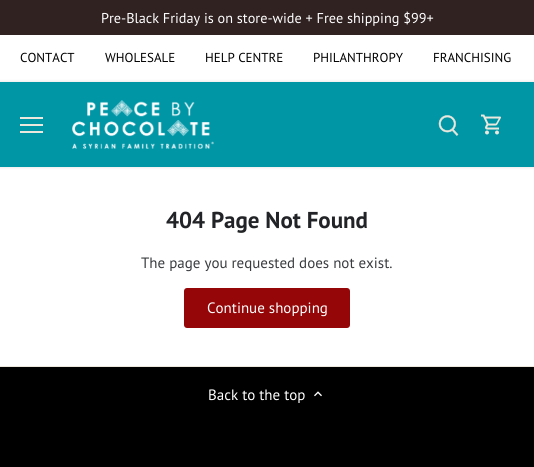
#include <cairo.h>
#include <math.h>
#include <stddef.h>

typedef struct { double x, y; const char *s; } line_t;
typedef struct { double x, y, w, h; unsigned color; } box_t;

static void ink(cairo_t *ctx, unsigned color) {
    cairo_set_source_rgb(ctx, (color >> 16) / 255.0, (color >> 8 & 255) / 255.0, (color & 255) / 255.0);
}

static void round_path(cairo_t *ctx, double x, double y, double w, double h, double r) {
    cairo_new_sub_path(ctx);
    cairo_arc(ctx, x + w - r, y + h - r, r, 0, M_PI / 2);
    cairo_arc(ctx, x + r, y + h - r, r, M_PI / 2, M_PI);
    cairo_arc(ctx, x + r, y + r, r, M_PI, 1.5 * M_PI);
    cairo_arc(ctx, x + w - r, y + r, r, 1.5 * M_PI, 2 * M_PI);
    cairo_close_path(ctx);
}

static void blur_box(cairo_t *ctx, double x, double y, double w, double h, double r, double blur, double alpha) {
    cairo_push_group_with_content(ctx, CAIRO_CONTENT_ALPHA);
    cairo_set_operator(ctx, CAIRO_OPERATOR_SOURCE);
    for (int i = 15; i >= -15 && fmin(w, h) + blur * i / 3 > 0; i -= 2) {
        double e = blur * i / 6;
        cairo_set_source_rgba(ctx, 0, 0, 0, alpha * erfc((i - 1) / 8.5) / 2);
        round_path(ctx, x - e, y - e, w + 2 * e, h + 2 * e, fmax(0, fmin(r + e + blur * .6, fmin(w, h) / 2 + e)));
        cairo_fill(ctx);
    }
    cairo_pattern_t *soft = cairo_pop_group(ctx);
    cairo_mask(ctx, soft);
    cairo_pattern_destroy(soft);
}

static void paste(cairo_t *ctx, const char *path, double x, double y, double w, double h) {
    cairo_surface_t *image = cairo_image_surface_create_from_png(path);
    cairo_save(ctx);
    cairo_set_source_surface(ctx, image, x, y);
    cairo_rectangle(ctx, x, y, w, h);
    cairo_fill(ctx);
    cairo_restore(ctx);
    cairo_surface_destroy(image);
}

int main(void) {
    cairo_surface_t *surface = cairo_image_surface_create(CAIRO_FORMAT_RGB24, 534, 467);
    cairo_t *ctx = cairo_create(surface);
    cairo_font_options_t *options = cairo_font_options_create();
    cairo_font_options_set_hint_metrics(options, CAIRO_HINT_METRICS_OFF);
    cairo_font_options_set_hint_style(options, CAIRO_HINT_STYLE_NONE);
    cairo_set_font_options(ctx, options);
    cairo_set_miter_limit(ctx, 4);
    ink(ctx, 0x000000);
    cairo_paint(ctx);
    ink(ctx, 0xFFFFFF);
    cairo_rectangle(ctx, 0, 35, 534, 331);
    cairo_fill(ctx);
    ink(ctx, 0x312222);
    cairo_rectangle(ctx, 0, 0, 534, 35);
    cairo_fill(ctx);
    cairo_select_font_face(ctx, "PT Sans", CAIRO_FONT_SLANT_NORMAL, CAIRO_FONT_WEIGHT_NORMAL);
    cairo_set_font_size(ctx, 14.25);
    ink(ctx, 0xFFFFFF);
    cairo_move_to(ctx, 101, 23);
    cairo_show_text(ctx, "Pre-Black Friday is on store-wide + Free shipping $99+");
    cairo_set_font_size(ctx, 13);
    ink(ctx, 0x000000);
    {
        static const line_t items[] = {
            {20, 62, "CONTACT"},
            {105, 62, "WHOLESALE"},
            {205, 62, "HELP CENTRE"},
            {313, 62, "PHILANTHROPY"},
            {433, 62, "FRANCHISING"},
        };
        for (size_t i = 0; i < sizeof items / sizeof *items; i++) {
            cairo_move_to(ctx, items[i].x, items[i].y);
            cairo_show_text(ctx, items[i].s);
        }
    }
    ink(ctx, 0x000000);
    blur_box(ctx, -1, 81, 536, 87, 0, 1.5, 0.08);
    {
        static const box_t items[] = {
            {0, 82, 534, 85, 0x0096A6},
            {20, 117, 23, 2, 0xEDE8DD},
            {20, 124, 23, 2, 0xEDE8DD},
            {20, 131, 23, 2, 0xEDE8DD},
        };
        for (size_t i = 0; i < sizeof items / sizeof *items; i++) {
            ink(ctx, items[i].color);
            cairo_rectangle(ctx, items[i].x, items[i].y, items[i].w, items[i].h);
            cairo_fill(ctx);
        }
    }
    paste(ctx, "media/1.png", 72, 100, 142, 49);
    paste(ctx, "media/2.png", 438, 115, 21, 21);
    paste(ctx, "media/3.png", 481, 114, 20, 21);
    cairo_select_font_face(ctx, "PT Sans", CAIRO_FONT_SLANT_NORMAL, CAIRO_FONT_WEIGHT_BOLD);
    cairo_set_font_size(ctx, 23);
    ink(ctx, 0x212326);
    cairo_move_to(ctx, 166, 228);
    cairo_show_text(ctx, "404 Page Not Found");
    cairo_select_font_face(ctx, "PT Sans", CAIRO_FONT_SLANT_NORMAL, CAIRO_FONT_WEIGHT_NORMAL);
    cairo_set_font_size(ctx, 15);
    ink(ctx, 0x393B3E);
    cairo_move_to(ctx, 141, 268);
    cairo_show_text(ctx, "The page you requested does not exist.");
    ink(ctx, 0x940607);
    round_path(ctx, 185, 289, 164, 38, 2);
    cairo_fill_preserve(ctx);
    cairo_stroke(ctx);
    ink(ctx, 0xFFFFFF);
    cairo_move_to(ctx, 207, 313);
    cairo_show_text(ctx, "Continue shopping");
    ink(ctx, 0xEDE8DD);
    cairo_rectangle(ctx, 0, 366, 534, 1);
    cairo_fill(ctx);
    ink(ctx, 0xFFFFFF);
    cairo_move_to(ctx, 208, 400);
    cairo_show_text(ctx, "Back to the top");
    paste(ctx, "media/4.png", 314, 391, 8, 6);
    cairo_surface_write_to_png(surface, "image.png");
    cairo_font_options_destroy(options);
    cairo_destroy(ctx);
    cairo_surface_destroy(surface);
    return 0;
}
